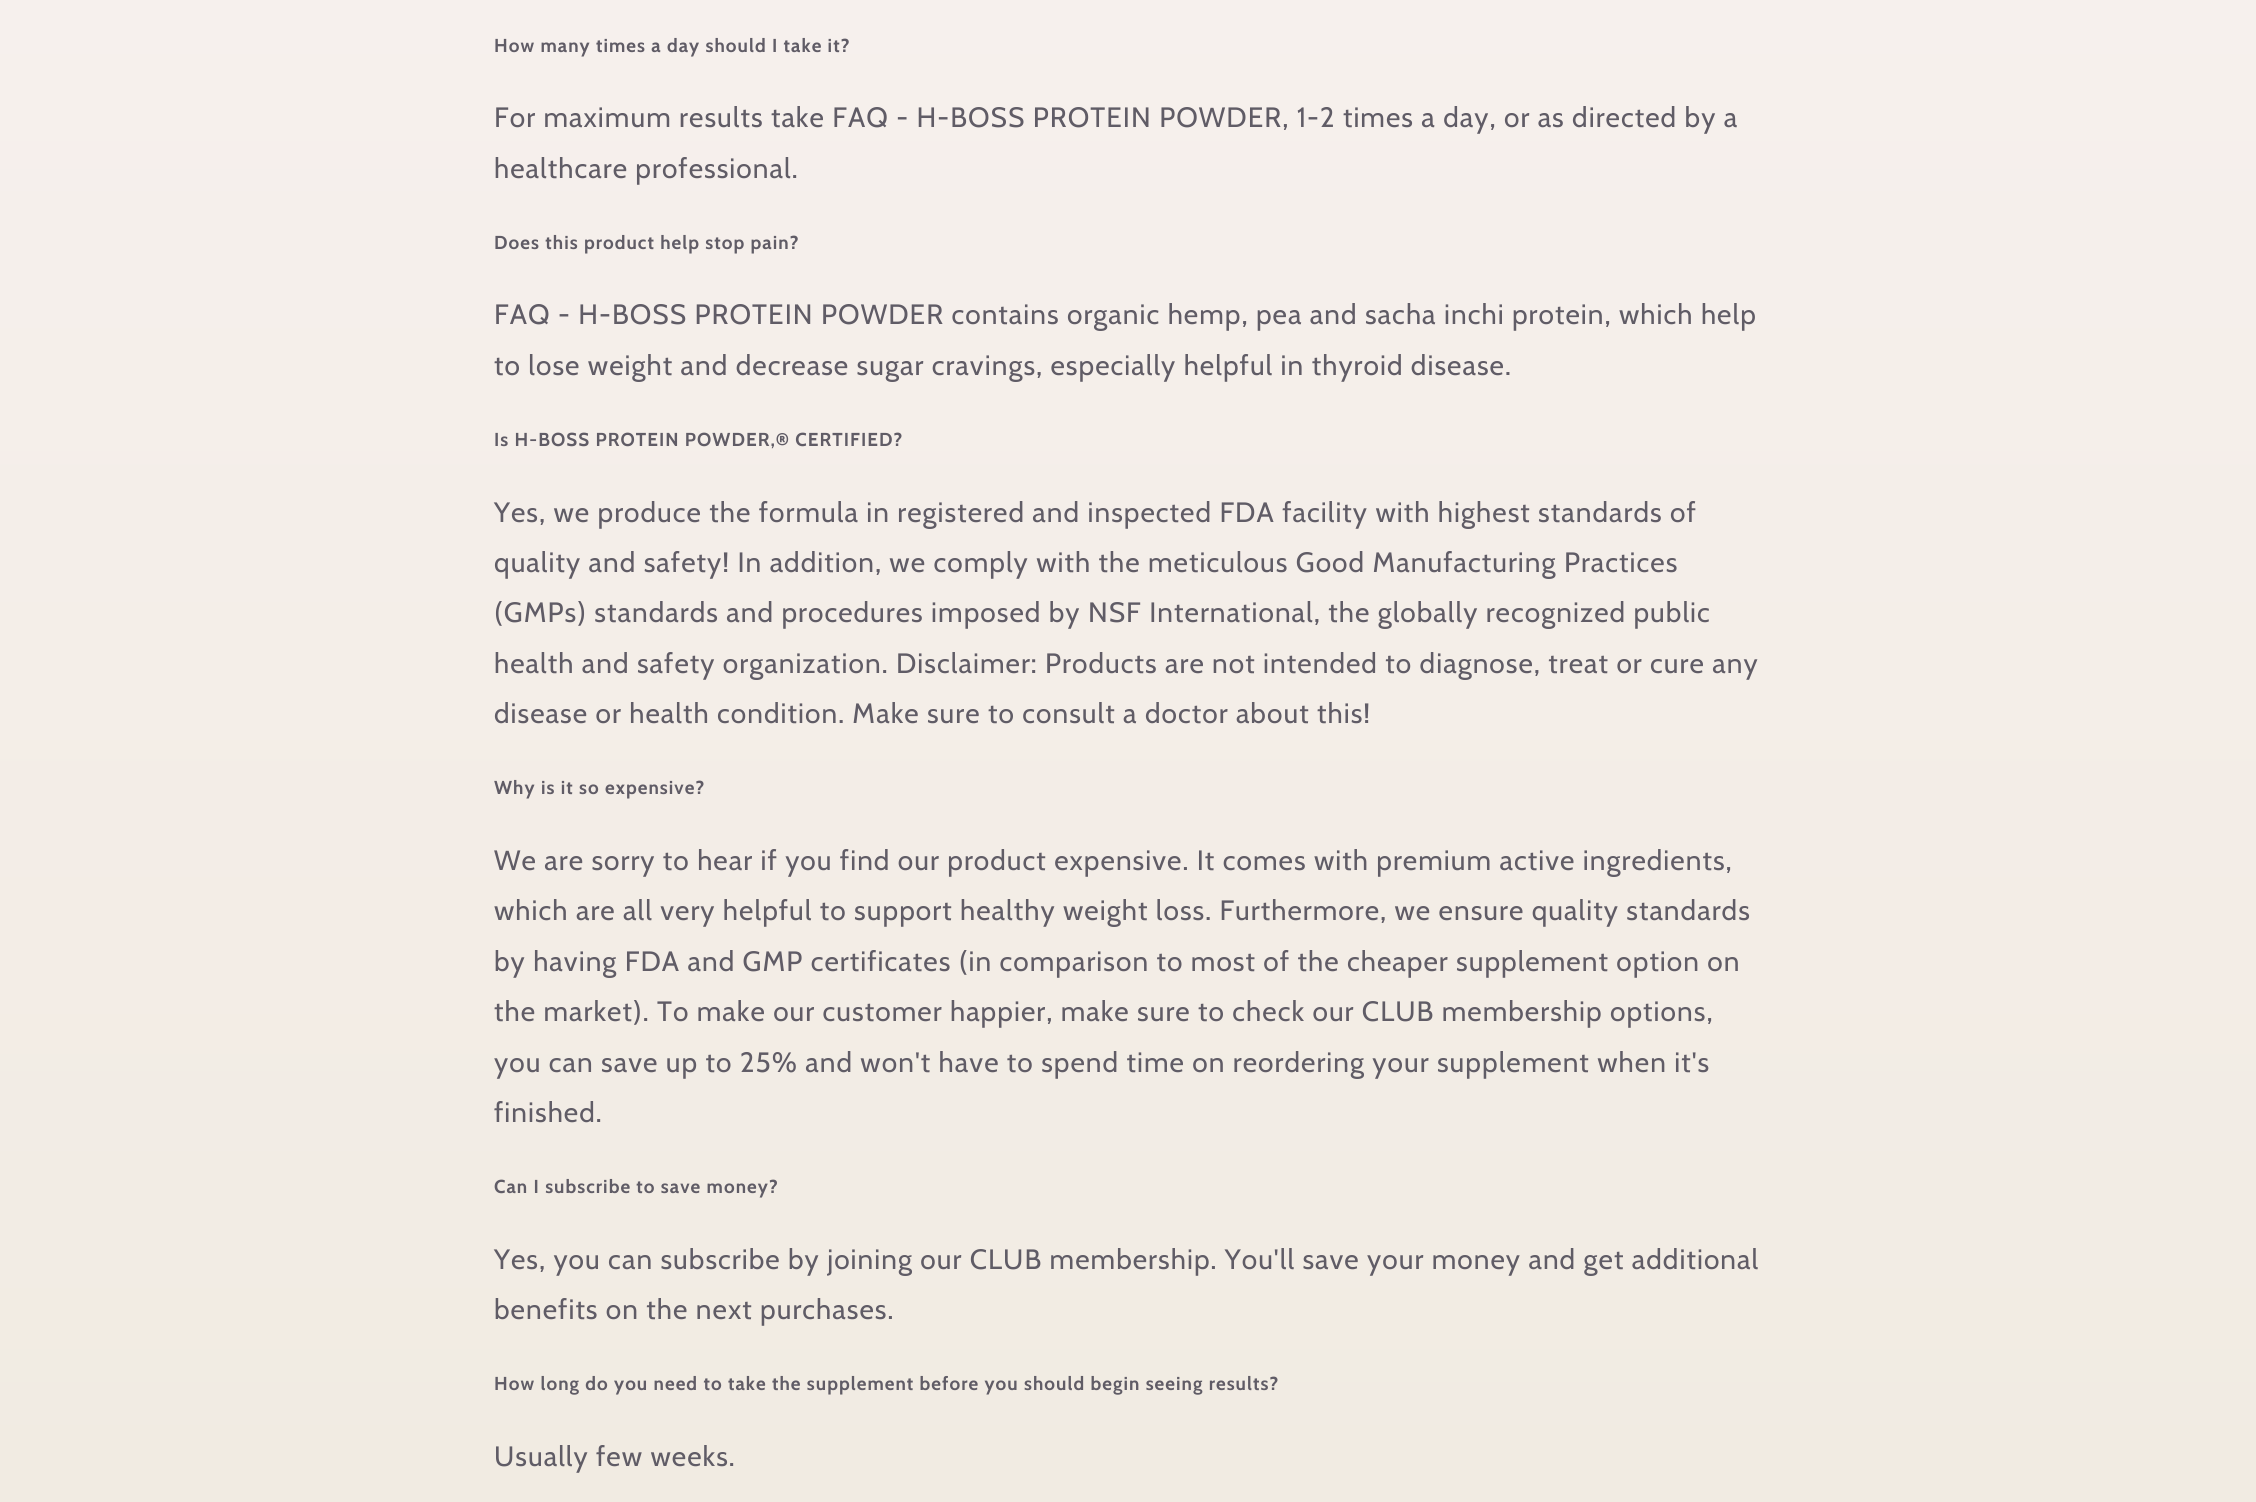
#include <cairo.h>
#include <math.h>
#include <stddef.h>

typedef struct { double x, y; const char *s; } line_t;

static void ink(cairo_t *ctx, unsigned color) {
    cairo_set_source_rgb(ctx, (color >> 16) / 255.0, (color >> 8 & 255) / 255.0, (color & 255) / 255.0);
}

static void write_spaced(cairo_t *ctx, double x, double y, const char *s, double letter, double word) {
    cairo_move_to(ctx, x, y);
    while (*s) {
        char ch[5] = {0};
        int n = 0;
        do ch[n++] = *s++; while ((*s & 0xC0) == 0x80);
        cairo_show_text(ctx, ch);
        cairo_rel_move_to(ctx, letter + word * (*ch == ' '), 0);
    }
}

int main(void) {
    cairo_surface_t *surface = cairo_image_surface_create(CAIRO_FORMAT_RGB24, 2256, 1502);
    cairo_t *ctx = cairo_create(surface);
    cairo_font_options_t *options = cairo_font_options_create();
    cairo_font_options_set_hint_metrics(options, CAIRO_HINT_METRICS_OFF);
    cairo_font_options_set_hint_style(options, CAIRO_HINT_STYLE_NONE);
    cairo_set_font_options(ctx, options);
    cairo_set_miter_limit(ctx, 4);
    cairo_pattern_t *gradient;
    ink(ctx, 0xFFFFFF);
    cairo_paint(ctx);
    gradient = cairo_pattern_create_linear(1129, 0, 1129, 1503);
    cairo_pattern_add_color_stop_rgba(gradient, 0, 0.965, 0.941, 0.929, 1);
    cairo_pattern_add_color_stop_rgba(gradient, 1, 0.945, 0.922, 0.886, 1);
    cairo_set_source(ctx, gradient);
    cairo_pattern_destroy(gradient);
    cairo_rectangle(ctx, 0, 0, 2256, 1502);
    cairo_fill(ctx);
    cairo_select_font_face(ctx, "Cabin", CAIRO_FONT_SLANT_NORMAL, CAIRO_FONT_WEIGHT_BOLD);
    cairo_set_font_size(ctx, 18.75);
    ink(ctx, 0x605C66);
    write_spaced(ctx, 494, 52, "How many times a day should I take it?", 1.05, 0);
    cairo_select_font_face(ctx, "Cabin", CAIRO_FONT_SLANT_NORMAL, CAIRO_FONT_WEIGHT_NORMAL);
    cairo_set_font_size(ctx, 28);
    write_spaced(ctx, 494, 127, "For maximum results take FAQ - H-BOSS PROTEIN POWDER, 1-2 times a day, or as directed by a", 1.05, 0);
    write_spaced(ctx, 494, 178, "healthcare professional.", 1.05, 0);
    cairo_select_font_face(ctx, "Cabin", CAIRO_FONT_SLANT_NORMAL, CAIRO_FONT_WEIGHT_BOLD);
    cairo_set_font_size(ctx, 18.75);
    write_spaced(ctx, 494, 249, "Does this product help stop pain?", 1.05, 0);
    cairo_select_font_face(ctx, "Cabin", CAIRO_FONT_SLANT_NORMAL, CAIRO_FONT_WEIGHT_NORMAL);
    cairo_set_font_size(ctx, 28);
    write_spaced(ctx, 494, 324, "FAQ - H-BOSS PROTEIN POWDER contains organic hemp, pea and sacha inchi protein, which help", 1.05, 0);
    write_spaced(ctx, 494, 375, "to lose weight and decrease sugar cravings, especially helpful in thyroid disease.", 1.05, 0);
    cairo_select_font_face(ctx, "Cabin", CAIRO_FONT_SLANT_NORMAL, CAIRO_FONT_WEIGHT_BOLD);
    cairo_set_font_size(ctx, 18.75);
    write_spaced(ctx, 494, 446, "Is H-BOSS PROTEIN POWDER,® CERTIFIED?", 1.05, 0);
    cairo_select_font_face(ctx, "Cabin", CAIRO_FONT_SLANT_NORMAL, CAIRO_FONT_WEIGHT_NORMAL);
    cairo_set_font_size(ctx, 28);
    {
        static const line_t items[] = {
            {494, 522, "Yes, we produce the formula in registered and inspected FDA facility with highest standards of"},
            {494, 572, "quality and safety! In addition, we comply with the meticulous Good Manufacturing Practices"},
            {494, 622, "(GMPs) standards and procedures imposed by NSF International, the globally recognized public"},
            {494, 673, "health and safety organization. Disclaimer: Products are not intended to diagnose, treat or cure any"},
            {494, 723, "disease or health condition. Make sure to consult a doctor about this!"},
        };
        for (size_t i = 0; i < sizeof items / sizeof *items; i++) {
            write_spaced(ctx, items[i].x, items[i].y, items[i].s, 1.05, 0);
        }
    }
    cairo_select_font_face(ctx, "Cabin", CAIRO_FONT_SLANT_NORMAL, CAIRO_FONT_WEIGHT_BOLD);
    cairo_set_font_size(ctx, 18.75);
    write_spaced(ctx, 494, 794, "Why is it so expensive?", 1.05, 0);
    cairo_select_font_face(ctx, "Cabin", CAIRO_FONT_SLANT_NORMAL, CAIRO_FONT_WEIGHT_NORMAL);
    cairo_set_font_size(ctx, 28);
    {
        static const line_t items[] = {
            {494, 870, "We are sorry to hear if you find our product expensive. It comes with premium active ingredients,"},
            {494, 920, "which are all very helpful to support healthy weight loss. Furthermore, we ensure quality standards"},
            {494, 971, "by having FDA and GMP certificates (in comparison to most of the cheaper supplement option on"},
            {494, 1021, "the market). To make our customer happier, make sure to check our CLUB membership options,"},
            {494, 1072, "you can save up to 25% and won't have to spend time on reordering your supplement when it's"},
            {494, 1122, "finished."},
        };
        for (size_t i = 0; i < sizeof items / sizeof *items; i++) {
            write_spaced(ctx, items[i].x, items[i].y, items[i].s, 1.05, 0);
        }
    }
    cairo_select_font_face(ctx, "Cabin", CAIRO_FONT_SLANT_NORMAL, CAIRO_FONT_WEIGHT_BOLD);
    cairo_set_font_size(ctx, 18.75);
    write_spaced(ctx, 494, 1193, "Can I subscribe to save money?", 1.05, 0);
    cairo_select_font_face(ctx, "Cabin", CAIRO_FONT_SLANT_NORMAL, CAIRO_FONT_WEIGHT_NORMAL);
    cairo_set_font_size(ctx, 28);
    write_spaced(ctx, 494, 1269, "Yes, you can subscribe by joining our CLUB membership. You'll save your money and get additional", 1.05, 0);
    write_spaced(ctx, 494, 1319, "benefits on the next purchases.", 1.05, 0);
    cairo_select_font_face(ctx, "Cabin", CAIRO_FONT_SLANT_NORMAL, CAIRO_FONT_WEIGHT_BOLD);
    cairo_set_font_size(ctx, 18.75);
    write_spaced(ctx, 494, 1390, "How long do you need to take the supplement before you should begin seeing results?", 1.05, 0);
    cairo_select_font_face(ctx, "Cabin", CAIRO_FONT_SLANT_NORMAL, CAIRO_FONT_WEIGHT_NORMAL);
    cairo_set_font_size(ctx, 28);
    write_spaced(ctx, 494, 1466, "Usually few weeks.", 1.05, 0);
    cairo_surface_write_to_png(surface, "image.png");
    cairo_font_options_destroy(options);
    cairo_destroy(ctx);
    cairo_surface_destroy(surface);
    return 0;
}
